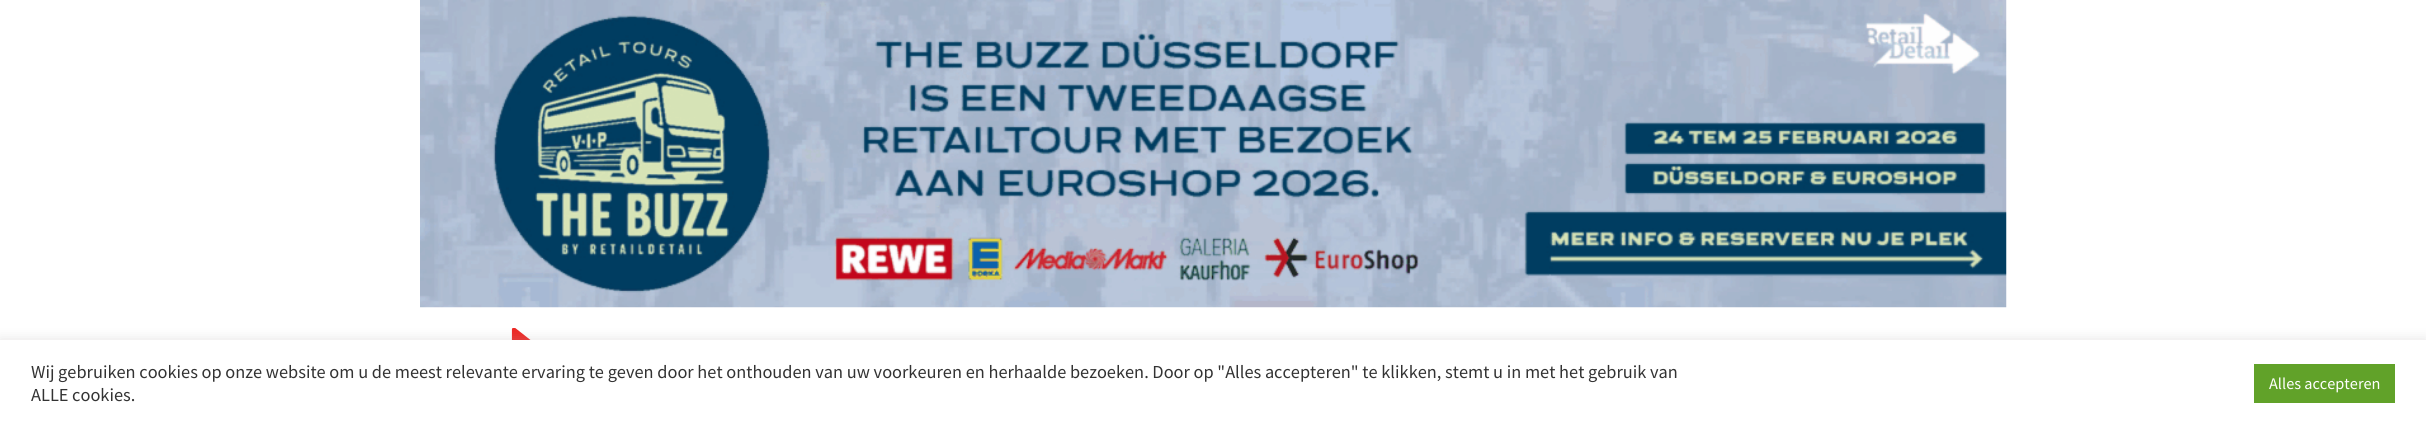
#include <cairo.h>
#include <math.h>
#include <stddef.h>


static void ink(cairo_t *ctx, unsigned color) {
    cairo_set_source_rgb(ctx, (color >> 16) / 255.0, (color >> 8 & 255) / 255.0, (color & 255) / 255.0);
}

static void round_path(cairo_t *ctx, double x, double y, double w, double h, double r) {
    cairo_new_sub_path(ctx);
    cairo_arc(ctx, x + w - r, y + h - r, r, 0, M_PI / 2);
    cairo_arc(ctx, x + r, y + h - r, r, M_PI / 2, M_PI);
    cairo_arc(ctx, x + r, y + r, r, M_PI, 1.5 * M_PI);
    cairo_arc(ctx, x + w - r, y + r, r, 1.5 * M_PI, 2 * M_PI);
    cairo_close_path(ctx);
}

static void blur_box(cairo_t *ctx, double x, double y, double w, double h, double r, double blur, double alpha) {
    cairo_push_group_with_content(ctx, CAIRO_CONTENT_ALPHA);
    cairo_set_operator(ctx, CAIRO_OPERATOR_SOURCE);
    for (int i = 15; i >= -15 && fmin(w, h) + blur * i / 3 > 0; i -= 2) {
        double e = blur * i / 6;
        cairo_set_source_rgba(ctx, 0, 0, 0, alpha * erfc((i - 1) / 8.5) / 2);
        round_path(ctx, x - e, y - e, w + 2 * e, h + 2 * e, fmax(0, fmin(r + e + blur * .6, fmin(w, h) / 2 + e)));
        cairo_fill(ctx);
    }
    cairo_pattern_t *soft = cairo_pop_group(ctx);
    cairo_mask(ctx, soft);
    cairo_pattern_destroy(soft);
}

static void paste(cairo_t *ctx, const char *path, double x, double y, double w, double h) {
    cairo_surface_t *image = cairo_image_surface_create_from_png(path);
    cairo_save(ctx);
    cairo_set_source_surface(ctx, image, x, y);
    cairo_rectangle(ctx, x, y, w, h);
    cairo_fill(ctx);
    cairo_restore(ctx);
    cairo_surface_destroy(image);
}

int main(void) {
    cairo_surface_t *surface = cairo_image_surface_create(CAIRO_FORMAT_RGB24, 2426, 426);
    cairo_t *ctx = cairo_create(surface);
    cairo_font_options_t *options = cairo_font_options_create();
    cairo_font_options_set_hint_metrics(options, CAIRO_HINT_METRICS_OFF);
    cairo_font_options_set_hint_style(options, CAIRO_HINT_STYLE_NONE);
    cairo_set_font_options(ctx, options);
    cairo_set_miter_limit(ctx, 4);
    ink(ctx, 0xFFFFFF);
    cairo_paint(ctx);
    paste(ctx, "media/1.png", 420, 0, 1587, 308);
    paste(ctx, "media/2.png", 511, 328, 20, 12);
    ink(ctx, 0xACABAB);
    blur_box(ctx, 0, 339, 2426, 86, 0, 6, 0.3);
    ink(ctx, 0xFFFFFF);
    cairo_rectangle(ctx, 0, 340, 2426, 86);
    cairo_fill(ctx);
    cairo_select_font_face(ctx, "Source Sans Pro", CAIRO_FONT_SLANT_NORMAL, CAIRO_FONT_WEIGHT_NORMAL);
    cairo_set_font_size(ctx, 18.33);
    ink(ctx, 0x333333);
    cairo_move_to(ctx, 31, 378);
    cairo_show_text(ctx, "Wij gebruiken cookies op onze website om u de meest relevante ervaring te geven door het onthouden van uw voorkeuren en herhaalde bezoeken. Door op \"Alles accepteren\" te klikken, stemt u in met het gebruik van");
    cairo_move_to(ctx, 31, 401);
    cairo_show_text(ctx, "ALLE cookies.");
    ink(ctx, 0x61A229);
    cairo_rectangle(ctx, 2254, 364, 141, 39);
    cairo_fill(ctx);
    cairo_set_font_size(ctx, 16.25);
    ink(ctx, 0xFFFFFF);
    cairo_move_to(ctx, 2269, 389);
    cairo_show_text(ctx, "Alles accepteren");
    cairo_surface_write_to_png(surface, "image.png");
    cairo_font_options_destroy(options);
    cairo_destroy(ctx);
    cairo_surface_destroy(surface);
    return 0;
}
